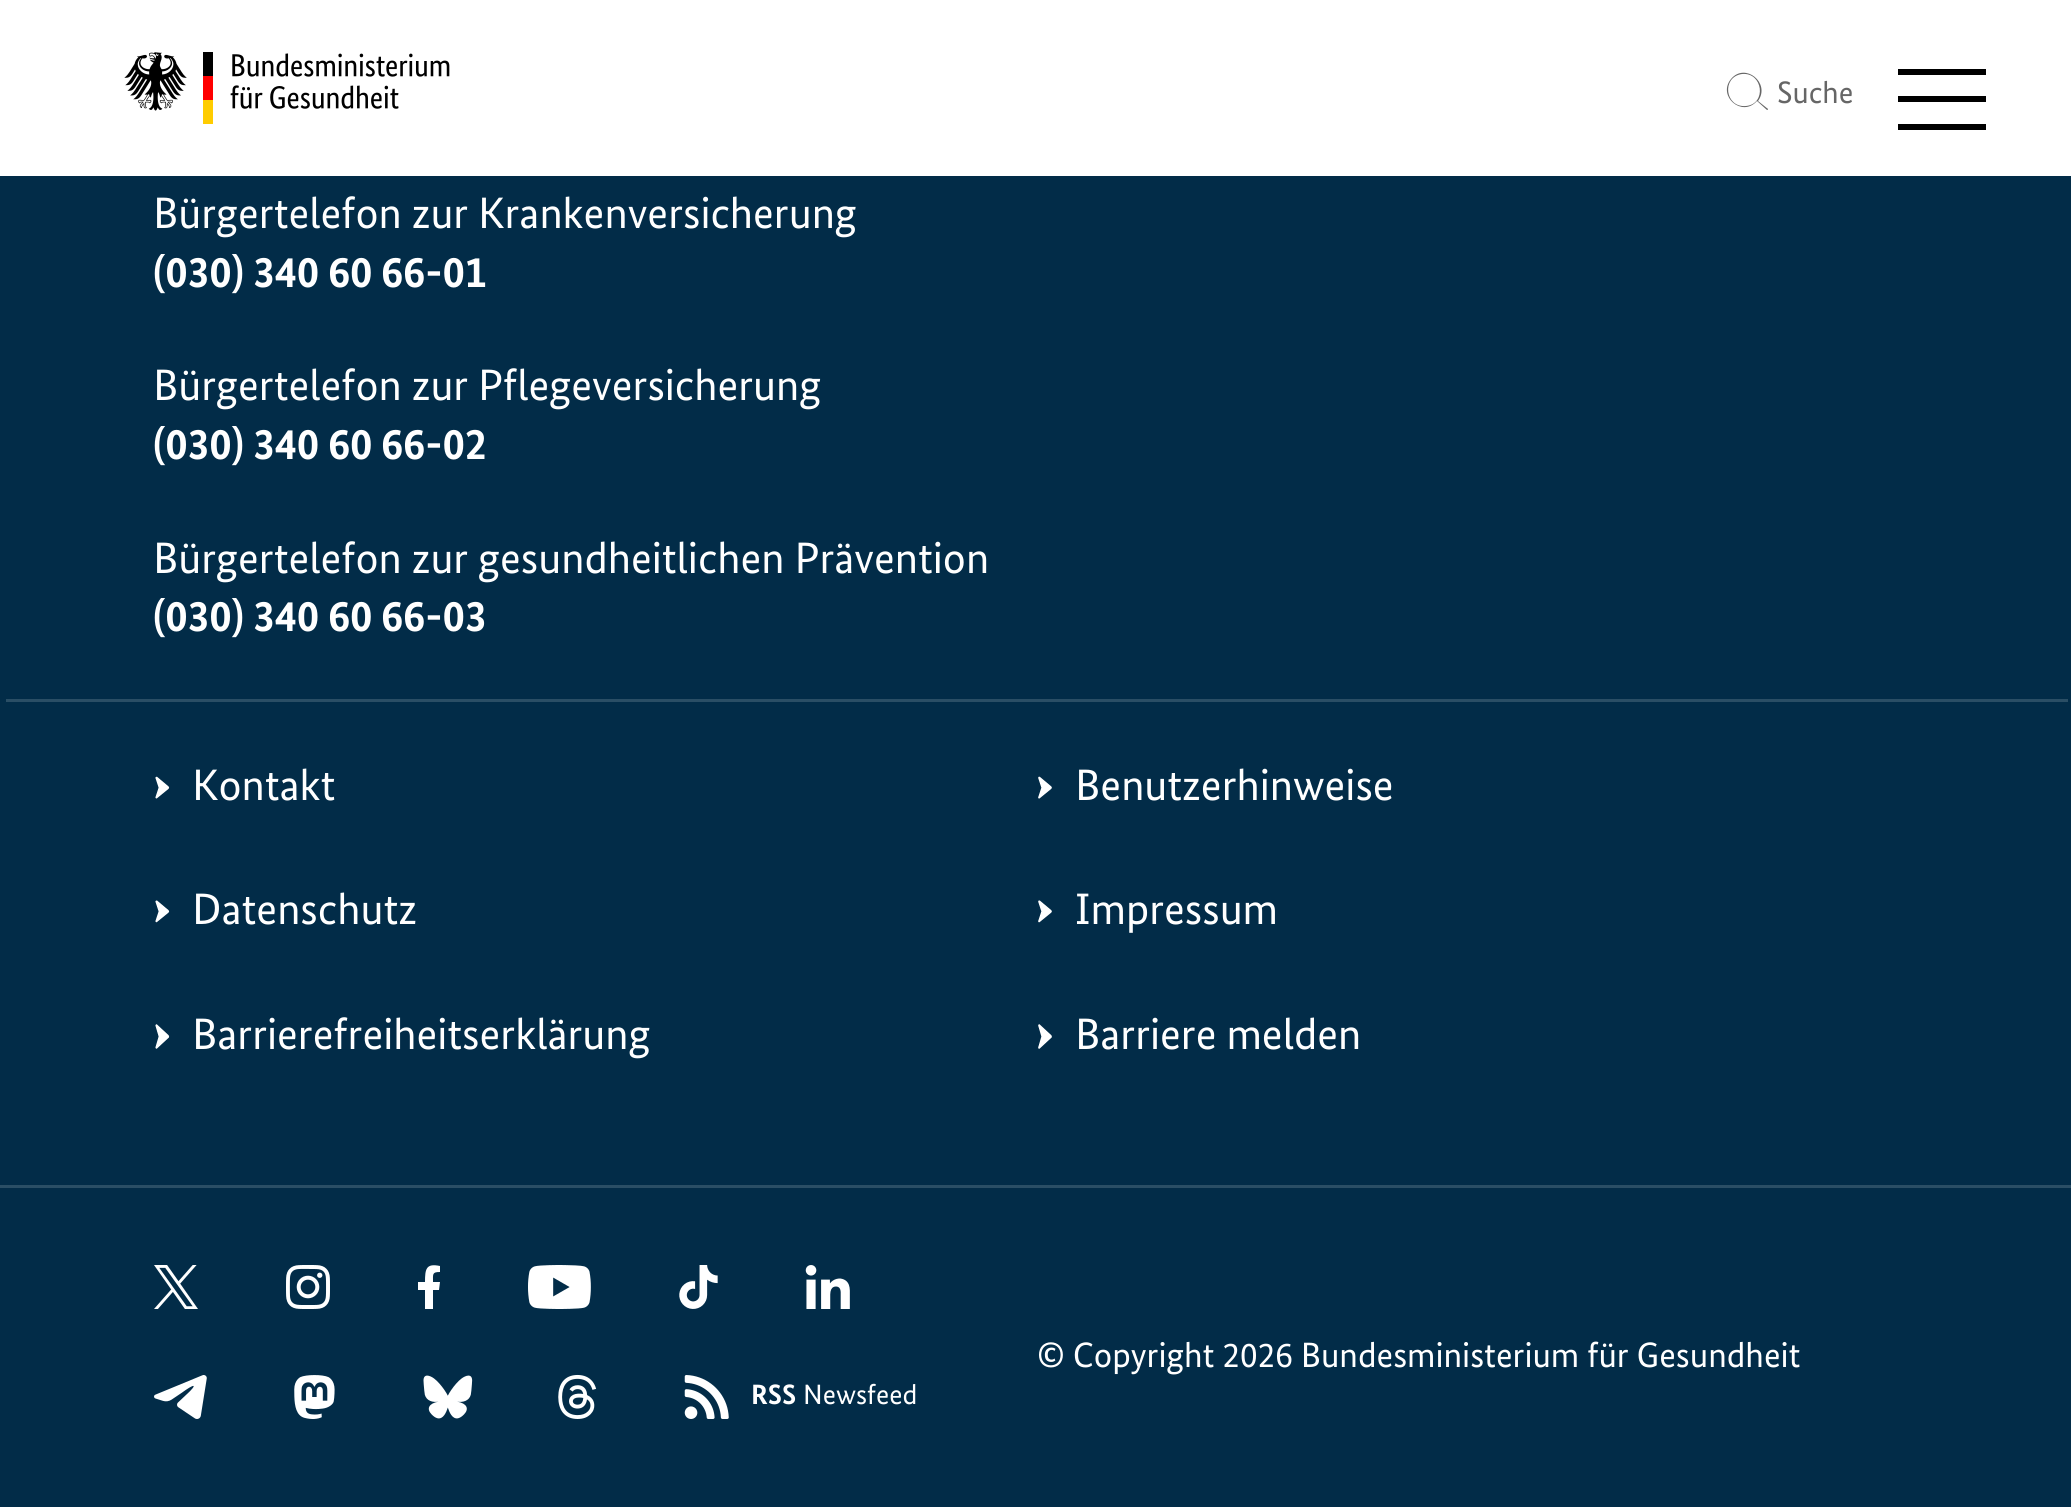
#include <cairo.h>
#include <math.h>
#include <stddef.h>

typedef struct { double x, y, w, h; unsigned color; } box_t;

static void ink(cairo_t *ctx, unsigned color) {
    cairo_set_source_rgb(ctx, (color >> 16) / 255.0, (color >> 8 & 255) / 255.0, (color & 255) / 255.0);
}

static void paste(cairo_t *ctx, const char *path, double x, double y, double w, double h) {
    cairo_surface_t *image = cairo_image_surface_create_from_png(path);
    cairo_save(ctx);
    cairo_set_source_surface(ctx, image, x, y);
    cairo_rectangle(ctx, x, y, w, h);
    cairo_fill(ctx);
    cairo_restore(ctx);
    cairo_surface_destroy(image);
}

int main(void) {
    cairo_surface_t *surface = cairo_image_surface_create(CAIRO_FORMAT_RGB24, 2071, 1507);
    cairo_t *ctx = cairo_create(surface);
    cairo_font_options_t *options = cairo_font_options_create();
    cairo_font_options_set_hint_metrics(options, CAIRO_HINT_METRICS_OFF);
    cairo_font_options_set_hint_style(options, CAIRO_HINT_STYLE_NONE);
    cairo_set_font_options(ctx, options);
    cairo_set_miter_limit(ctx, 4);
    ink(ctx, 0x022C48);
    cairo_paint(ctx);
    ink(ctx, 0xFFFFFF);
    cairo_rectangle(ctx, 0, 0, 2071, 176);
    cairo_fill(ctx);
    paste(ctx, "media/1.png", 124, 52, 326, 72);
    ink(ctx, 0x666666);
    cairo_new_path(ctx);
    cairo_move_to(ctx, 1768, 109);
    cairo_line_to(ctx, 1758, 101);
    cairo_curve_to(ctx, 1771, 83, 1745, 62, 1731, 79);
    cairo_curve_to(ctx, 1717, 96, 1742, 118, 1757, 101);
    cairo_line_to(ctx, 1767, 110);
    cairo_curve_to(ctx, 1768, 110, 1768, 109, 1768, 109);
    cairo_close_path(ctx);
    cairo_move_to(ctx, 1746, 106);
    cairo_curve_to(ctx, 1725, 108, 1721, 77, 1742, 74);
    cairo_curve_to(ctx, 1763, 72, 1767, 104, 1746, 106);
    cairo_close_path(ctx);
    cairo_fill(ctx);
    cairo_select_font_face(ctx, "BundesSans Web", CAIRO_FONT_SLANT_NORMAL, CAIRO_FONT_WEIGHT_NORMAL);
    cairo_set_font_size(ctx, 31);
    cairo_move_to(ctx, 1777, 103);
    cairo_show_text(ctx, "Suche");
    {
        static const box_t items[] = {
            {1898, 69, 88, 6, 0x000000},
            {1898, 96, 88, 6, 0x000000},
            {1898, 124, 88, 6, 0x000000},
        };
        for (size_t i = 0; i < sizeof items / sizeof *items; i++) {
            ink(ctx, items[i].color);
            cairo_rectangle(ctx, items[i].x, items[i].y, items[i].w, items[i].h);
            cairo_fill(ctx);
        }
    }
    cairo_set_font_size(ctx, 44);
    ink(ctx, 0xFFFFFF);
    cairo_move_to(ctx, 153, 228);
    cairo_show_text(ctx, "Bürgertelefon zur Krankenversicherung");
    cairo_select_font_face(ctx, "BundesSans Web", CAIRO_FONT_SLANT_NORMAL, CAIRO_FONT_WEIGHT_BOLD);
    cairo_move_to(ctx, 153, 287);
    cairo_show_text(ctx, "(030) 340 60 66-01");
    cairo_select_font_face(ctx, "BundesSans Web", CAIRO_FONT_SLANT_NORMAL, CAIRO_FONT_WEIGHT_NORMAL);
    cairo_move_to(ctx, 153, 400);
    cairo_show_text(ctx, "Bürgertelefon zur Pflegeversicherung");
    cairo_select_font_face(ctx, "BundesSans Web", CAIRO_FONT_SLANT_NORMAL, CAIRO_FONT_WEIGHT_BOLD);
    cairo_move_to(ctx, 153, 459);
    cairo_show_text(ctx, "(030) 340 60 66-02");
    cairo_select_font_face(ctx, "BundesSans Web", CAIRO_FONT_SLANT_NORMAL, CAIRO_FONT_WEIGHT_NORMAL);
    cairo_move_to(ctx, 153, 573);
    cairo_show_text(ctx, "Bürgertelefon zur gesundheitlichen Prävention");
    cairo_select_font_face(ctx, "BundesSans Web", CAIRO_FONT_SLANT_NORMAL, CAIRO_FONT_WEIGHT_BOLD);
    cairo_move_to(ctx, 153, 631);
    cairo_show_text(ctx, "(030) 340 60 66-03");
    ink(ctx, 0x2A4E65);
    cairo_rectangle(ctx, 6, 699, 2062, 3);
    cairo_fill(ctx);
    paste(ctx, "media/2.png", 155, 776, 15, 23);
    cairo_select_font_face(ctx, "BundesSans Web", CAIRO_FONT_SLANT_NORMAL, CAIRO_FONT_WEIGHT_NORMAL);
    ink(ctx, 0xFFFFFF);
    cairo_move_to(ctx, 192, 800);
    cairo_show_text(ctx, "Kontakt");
    paste(ctx, "media/3.png", 1038, 776, 14, 23);
    cairo_move_to(ctx, 1075, 800);
    cairo_show_text(ctx, "Benutzerhinweise");
    paste(ctx, "media/4.png", 155, 900, 15, 23);
    cairo_move_to(ctx, 192, 924);
    cairo_show_text(ctx, "Datenschutz");
    paste(ctx, "media/5.png", 1038, 900, 14, 23);
    cairo_move_to(ctx, 1075, 924);
    cairo_show_text(ctx, "Impressum");
    paste(ctx, "media/6.png", 155, 1024, 15, 25);
    cairo_move_to(ctx, 192, 1049);
    cairo_show_text(ctx, "Barrierefreiheitserklärung");
    paste(ctx, "media/7.png", 1038, 1024, 14, 25);
    cairo_move_to(ctx, 1075, 1049);
    cairo_show_text(ctx, "Barriere melden");
    ink(ctx, 0x2A4E65);
    cairo_rectangle(ctx, 0, 1185, 2071, 3);
    cairo_fill(ctx);
    cairo_set_font_size(ctx, 35.2);
    ink(ctx, 0xFFFFFF);
    cairo_move_to(ctx, 1037, 1367);
    cairo_show_text(ctx, "© Copyright 2026 Bundesministerium für Gesundheit");
    paste(ctx, "media/8.png", 154, 1265, 44, 44);
    paste(ctx, "media/9.png", 286, 1265, 44, 44);
    cairo_new_path(ctx);
    cairo_move_to(ctx, 439, 1290);
    cairo_line_to(ctx, 440, 1282);
    cairo_line_to(ctx, 433, 1282);
    cairo_curve_to(ctx, 433, 1274, 432, 1272, 440, 1272);
    cairo_line_to(ctx, 440, 1266);
    cairo_curve_to(ctx, 426, 1263, 425, 1269, 425, 1282);
    cairo_line_to(ctx, 418, 1282);
    cairo_line_to(ctx, 418, 1290);
    cairo_line_to(ctx, 425, 1290);
    cairo_line_to(ctx, 425, 1309);
    cairo_line_to(ctx, 433, 1309);
    cairo_line_to(ctx, 433, 1290);
    cairo_close_path(ctx);
    cairo_fill(ctx);
    paste(ctx, "media/10.png", 528, 1265, 63, 44);
    paste(ctx, "media/11.png", 679, 1265, 39, 44);
    paste(ctx, "media/12.png", 805, 1265, 45, 44);
    paste(ctx, "media/13.png", 154, 1375, 53, 44);
    paste(ctx, "media/14.png", 294, 1375, 41, 44);
    paste(ctx, "media/15.png", 423, 1375, 50, 44);
    paste(ctx, "media/16.png", 558, 1374, 39, 45);
    paste(ctx, "media/17.png", 684, 1375, 45, 44);
    cairo_select_font_face(ctx, "BundesSans Web", CAIRO_FONT_SLANT_NORMAL, CAIRO_FONT_WEIGHT_BOLD);
    cairo_set_font_size(ctx, 28);
    cairo_move_to(ctx, 751, 1404);
    cairo_show_text(ctx, "RSS");
    cairo_select_font_face(ctx, "BundesSans Web", CAIRO_FONT_SLANT_NORMAL, CAIRO_FONT_WEIGHT_NORMAL);
    cairo_move_to(ctx, 803, 1404);
    cairo_show_text(ctx, "Newsfeed");
    cairo_surface_write_to_png(surface, "image.png");
    cairo_font_options_destroy(options);
    cairo_destroy(ctx);
    cairo_surface_destroy(surface);
    return 0;
}
